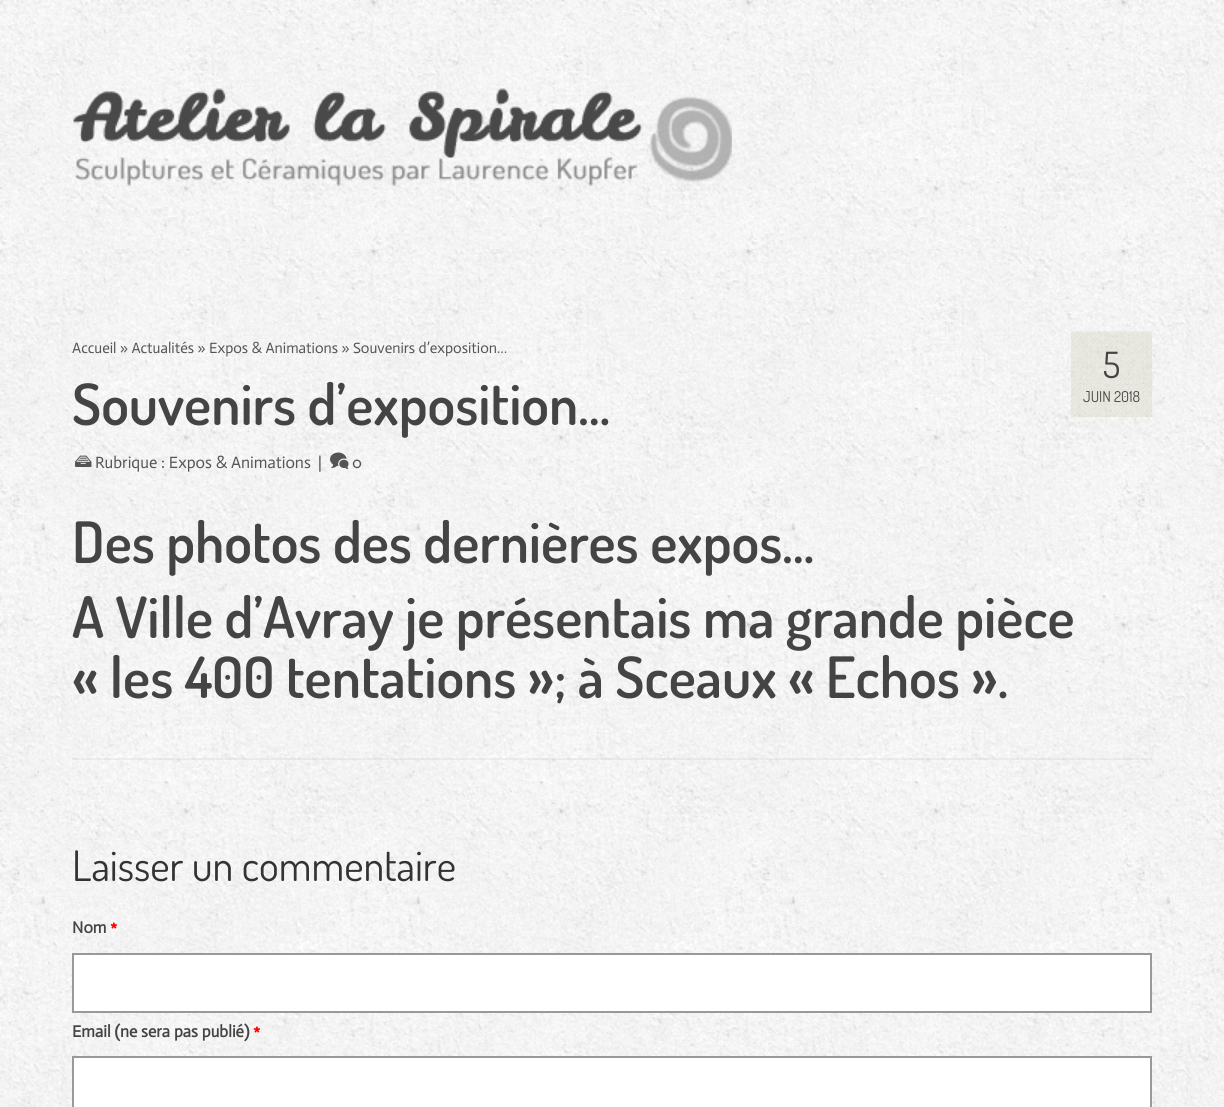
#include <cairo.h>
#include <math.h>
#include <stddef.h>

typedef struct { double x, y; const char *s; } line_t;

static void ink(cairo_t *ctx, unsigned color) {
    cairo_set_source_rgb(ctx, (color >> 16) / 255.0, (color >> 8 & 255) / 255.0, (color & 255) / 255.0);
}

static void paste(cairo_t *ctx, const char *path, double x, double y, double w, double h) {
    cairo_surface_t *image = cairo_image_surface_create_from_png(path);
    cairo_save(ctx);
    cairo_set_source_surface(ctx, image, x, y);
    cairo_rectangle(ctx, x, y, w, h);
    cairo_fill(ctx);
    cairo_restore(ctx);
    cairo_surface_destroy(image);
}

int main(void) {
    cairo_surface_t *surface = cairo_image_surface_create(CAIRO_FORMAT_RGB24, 1224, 1107);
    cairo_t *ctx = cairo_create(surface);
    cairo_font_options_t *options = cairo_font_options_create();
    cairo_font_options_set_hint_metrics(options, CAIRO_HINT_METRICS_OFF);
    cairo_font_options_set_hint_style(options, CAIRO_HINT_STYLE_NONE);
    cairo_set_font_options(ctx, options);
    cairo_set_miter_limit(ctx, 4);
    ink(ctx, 0xFFFFFF);
    cairo_paint(ctx);
    paste(ctx, "media/1.png", 0, 0, 1224, 249);
    paste(ctx, "media/2.png", 73, 88, 659, 99);
    paste(ctx, "media/3.png", 0, 249, 1224, 858);
    cairo_select_font_face(ctx, "Actor", CAIRO_FONT_SLANT_NORMAL, CAIRO_FONT_WEIGHT_NORMAL);
    cairo_set_font_size(ctx, 15);
    ink(ctx, 0x555555);
    cairo_move_to(ctx, 72, 353);
    cairo_show_text(ctx, "Accueil » Actualités » Expos & Animations » Souvenirs d’exposition…");
    cairo_select_font_face(ctx, "Dosis SemiBold", CAIRO_FONT_SLANT_NORMAL, CAIRO_FONT_WEIGHT_NORMAL);
    cairo_set_font_size(ctx, 57);
    ink(ctx, 0x444444);
    cairo_move_to(ctx, 72, 425);
    cairo_show_text(ctx, "Souvenirs d’exposition…");
    paste(ctx, "media/4.png", 75, 455, 17, 12);
    cairo_select_font_face(ctx, "Actor", CAIRO_FONT_SLANT_NORMAL, CAIRO_FONT_WEIGHT_NORMAL);
    cairo_set_font_size(ctx, 16.5);
    ink(ctx, 0x555555);
    cairo_move_to(ctx, 95, 468);
    cairo_show_text(ctx, "Rubrique : Expos & Animations");
    cairo_move_to(ctx, 318, 468);
    cairo_show_text(ctx, "|");
    paste(ctx, "media/5.png", 330, 452, 19, 17);
    cairo_move_to(ctx, 352, 468);
    cairo_show_text(ctx, "0");
    paste(ctx, "media/6.png", 1071, 331, 81, 86);
    cairo_select_font_face(ctx, "Dosis", CAIRO_FONT_SLANT_NORMAL, CAIRO_FONT_WEIGHT_NORMAL);
    cairo_set_font_size(ctx, 36);
    ink(ctx, 0x444444);
    cairo_move_to(ctx, 1103, 378);
    cairo_show_text(ctx, "5");
    cairo_set_font_size(ctx, 15);
    cairo_move_to(ctx, 1083, 402);
    cairo_show_text(ctx, "JUIN 2018");
    cairo_select_font_face(ctx, "Dosis SemiBold", CAIRO_FONT_SLANT_NORMAL, CAIRO_FONT_WEIGHT_NORMAL);
    cairo_set_font_size(ctx, 57);
    {
        static const line_t items[] = {
            {72, 563, "Des photos des dernières expos…"},
            {72, 638, "A Ville d’Avray je présentais ma grande pièce"},
            {72, 698, "« les 400 tentations »; à Sceaux « Echos »."},
        };
        for (size_t i = 0; i < sizeof items / sizeof *items; i++) {
            cairo_move_to(ctx, items[i].x, items[i].y);
            cairo_show_text(ctx, items[i].s);
        }
    }
    cairo_set_source_rgba(ctx, 0, 0, 0, 0.05);
    cairo_rectangle(ctx, 72, 758, 1080, 2);
    cairo_fill(ctx);
    cairo_select_font_face(ctx, "Dosis", CAIRO_FONT_SLANT_NORMAL, CAIRO_FONT_WEIGHT_NORMAL);
    cairo_set_font_size(ctx, 42);
    ink(ctx, 0x333333);
    cairo_move_to(ctx, 72, 881);
    cairo_show_text(ctx, "Laisser un commentaire");
    cairo_select_font_face(ctx, "Actor", CAIRO_FONT_SLANT_NORMAL, CAIRO_FONT_WEIGHT_BOLD);
    cairo_set_font_size(ctx, 16.5);
    ink(ctx, 0x444444);
    cairo_move_to(ctx, 72, 933);
    cairo_show_text(ctx, "Nom");
    ink(ctx, 0xFF0000);
    cairo_move_to(ctx, 110, 933);
    cairo_show_text(ctx, "*");
    ink(ctx, 0xFFFFFF);
    cairo_rectangle(ctx, 73, 954, 1078, 58);
    cairo_fill_preserve(ctx);
    ink(ctx, 0x999999);
    cairo_stroke(ctx);
    ink(ctx, 0x444444);
    cairo_move_to(ctx, 72, 1037);
    cairo_show_text(ctx, "Email (ne sera pas publié)");
    ink(ctx, 0xFF0000);
    cairo_move_to(ctx, 253, 1037);
    cairo_show_text(ctx, "*");
    ink(ctx, 0xFFFFFF);
    cairo_rectangle(ctx, 73, 1057, 1078, 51);
    cairo_fill_preserve(ctx);
    ink(ctx, 0x999999);
    cairo_stroke(ctx);
    cairo_surface_write_to_png(surface, "image.png");
    cairo_font_options_destroy(options);
    cairo_destroy(ctx);
    cairo_surface_destroy(surface);
    return 0;
}
